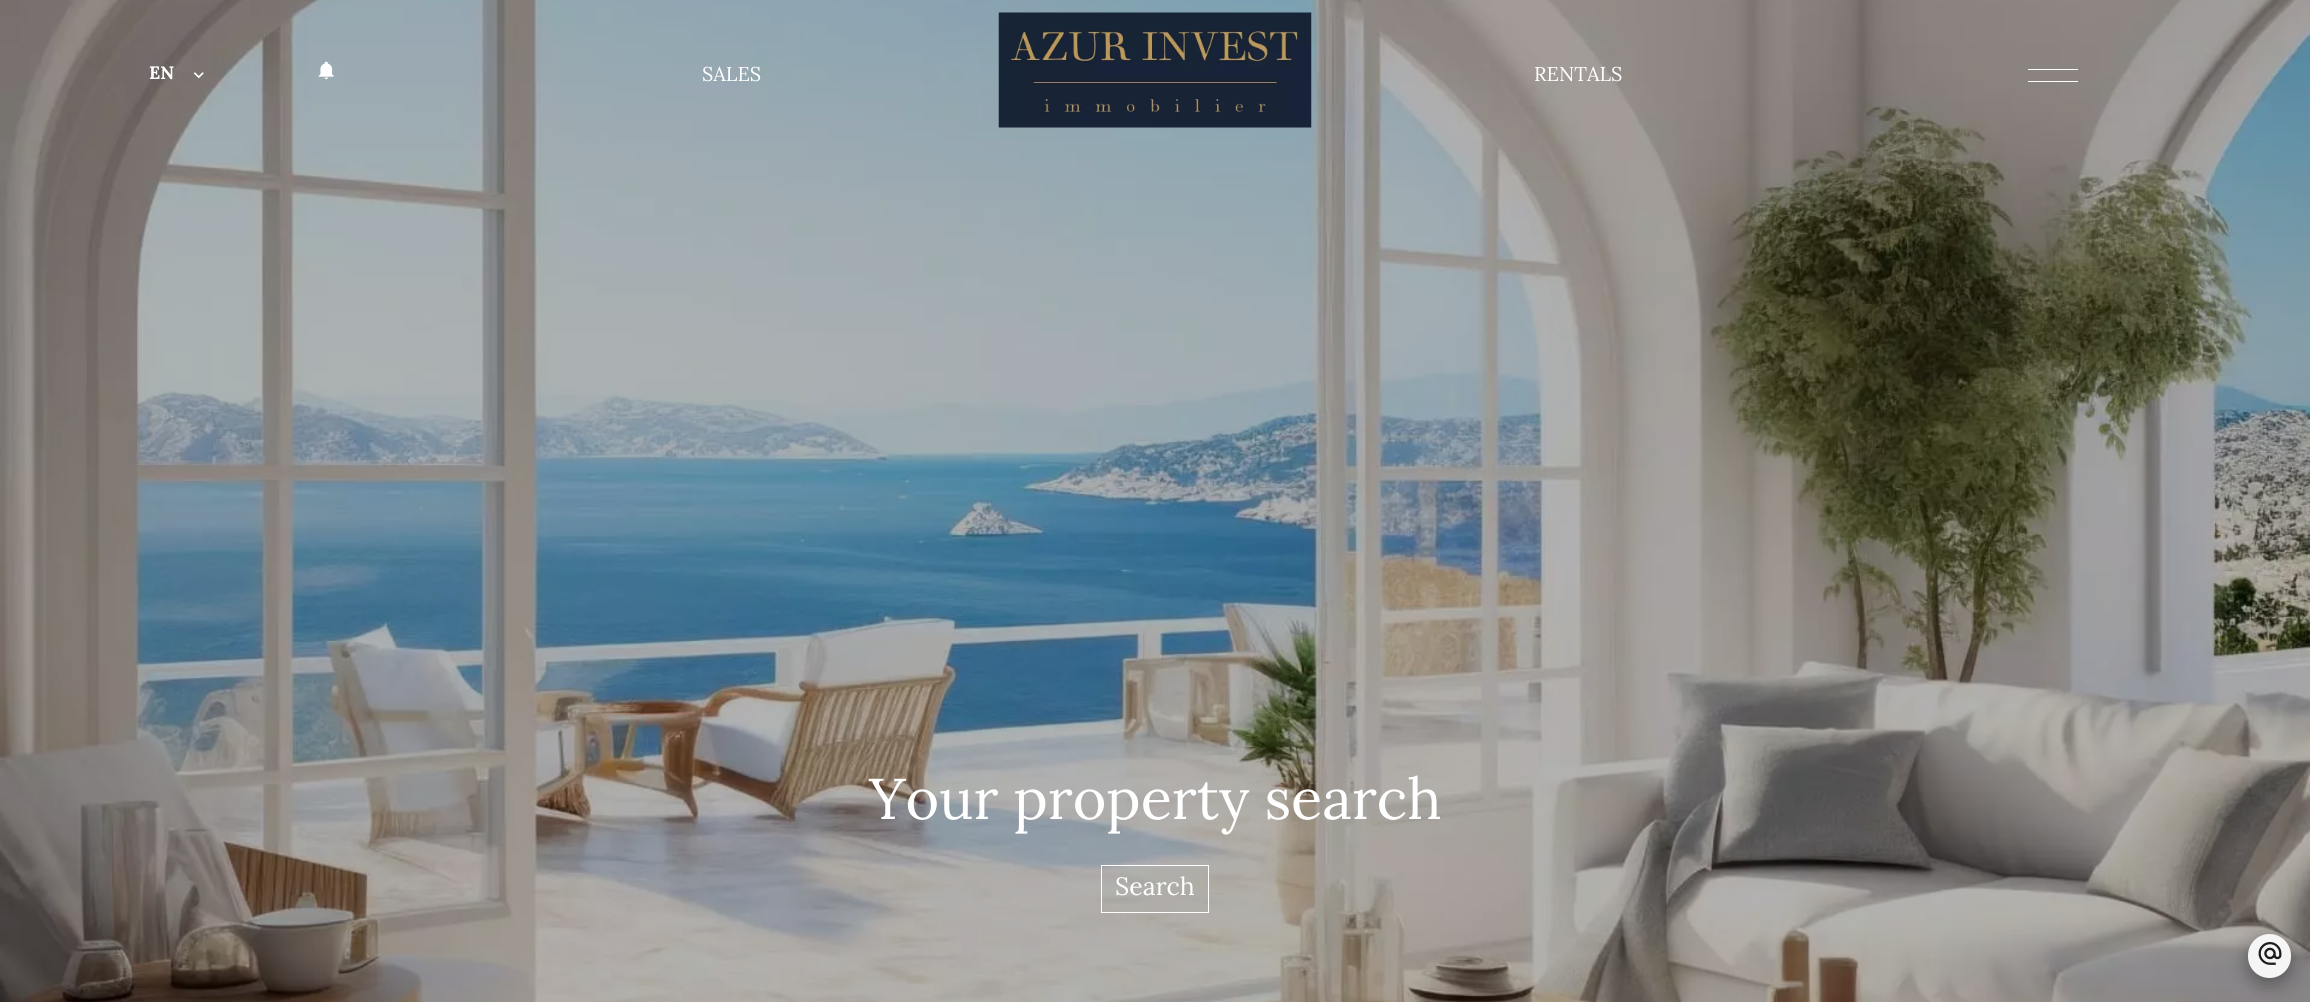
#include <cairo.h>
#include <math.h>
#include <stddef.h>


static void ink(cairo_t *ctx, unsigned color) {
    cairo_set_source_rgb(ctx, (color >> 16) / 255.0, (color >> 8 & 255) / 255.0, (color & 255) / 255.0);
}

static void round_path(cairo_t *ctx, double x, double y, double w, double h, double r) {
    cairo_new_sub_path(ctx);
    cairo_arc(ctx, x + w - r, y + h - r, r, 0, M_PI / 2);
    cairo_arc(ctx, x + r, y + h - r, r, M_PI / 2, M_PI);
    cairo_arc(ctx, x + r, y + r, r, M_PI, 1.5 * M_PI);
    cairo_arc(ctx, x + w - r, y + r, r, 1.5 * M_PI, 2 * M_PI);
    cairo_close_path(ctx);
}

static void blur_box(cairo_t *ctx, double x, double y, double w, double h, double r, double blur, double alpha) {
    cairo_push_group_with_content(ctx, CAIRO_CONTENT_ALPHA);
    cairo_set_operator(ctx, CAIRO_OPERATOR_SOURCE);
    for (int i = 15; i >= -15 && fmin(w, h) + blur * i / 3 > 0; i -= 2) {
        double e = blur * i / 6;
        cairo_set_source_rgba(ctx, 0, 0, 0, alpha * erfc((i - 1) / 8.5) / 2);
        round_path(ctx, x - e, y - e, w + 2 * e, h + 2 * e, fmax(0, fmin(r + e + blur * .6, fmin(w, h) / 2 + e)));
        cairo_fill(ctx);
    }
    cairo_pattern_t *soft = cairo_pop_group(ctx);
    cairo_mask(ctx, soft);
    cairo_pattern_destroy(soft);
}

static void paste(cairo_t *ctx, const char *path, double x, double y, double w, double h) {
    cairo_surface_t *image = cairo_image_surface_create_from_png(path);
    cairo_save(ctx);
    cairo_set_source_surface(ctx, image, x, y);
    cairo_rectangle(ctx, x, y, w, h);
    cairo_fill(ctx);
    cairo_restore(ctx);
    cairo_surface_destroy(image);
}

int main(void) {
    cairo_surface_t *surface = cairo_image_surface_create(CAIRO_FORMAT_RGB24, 2310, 1002);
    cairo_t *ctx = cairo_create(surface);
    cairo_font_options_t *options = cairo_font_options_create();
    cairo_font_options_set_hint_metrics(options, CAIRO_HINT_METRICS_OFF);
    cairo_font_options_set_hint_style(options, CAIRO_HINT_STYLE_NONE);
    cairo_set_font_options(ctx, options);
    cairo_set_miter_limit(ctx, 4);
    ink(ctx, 0xFFFFFF);
    cairo_paint(ctx);
    paste(ctx, "media/4.png", 0, 0, 2310, 1002);
    cairo_select_font_face(ctx, "Lora", CAIRO_FONT_SLANT_NORMAL, CAIRO_FONT_WEIGHT_BOLD);
    cairo_set_font_size(ctx, 18);
    ink(ctx, 0xFFFFFF);
    cairo_move_to(ctx, 149, 79);
    cairo_show_text(ctx, "EN");
    paste(ctx, "media/1.png", 193, 72, 11, 7);
    paste(ctx, "media/2.png", 318, 61, 16, 19);
    cairo_select_font_face(ctx, "Lora", CAIRO_FONT_SLANT_NORMAL, CAIRO_FONT_WEIGHT_NORMAL);
    cairo_set_font_size(ctx, 20);
    cairo_move_to(ctx, 702, 81);
    cairo_show_text(ctx, "SALES");
    paste(ctx, "media/3.png", 998, 12, 314, 116);
    cairo_move_to(ctx, 1534, 81);
    cairo_show_text(ctx, "RENTALS");
    cairo_rectangle(ctx, 2028, 69, 50, 1);
    cairo_fill(ctx);
    cairo_rectangle(ctx, 2028, 81, 50, 1);
    cairo_fill(ctx);
    cairo_set_font_size(ctx, 57.5);
    cairo_move_to(ctx, 869, 819);
    cairo_show_text(ctx, "Your property search");
    cairo_rectangle(ctx, 1101.5, 865.5, 107, 47);
    cairo_set_line_width(ctx, 1);
    cairo_stroke(ctx);
    cairo_set_font_size(ctx, 25);
    cairo_move_to(ctx, 1115, 895);
    cairo_show_text(ctx, "Search");
    ink(ctx, 0x000000);
    blur_box(ctx, 2248, 940, 43, 44, 21.5, 9.5, 0.35);
    ink(ctx, 0xF5F5F5);
    round_path(ctx, 2248, 934, 43, 44, 21.5);
    cairo_fill(ctx);
    paste(ctx, "media/5.png", 2258, 942, 24, 23);
    cairo_surface_write_to_png(surface, "image.png");
    cairo_font_options_destroy(options);
    cairo_destroy(ctx);
    cairo_surface_destroy(surface);
    return 0;
}
